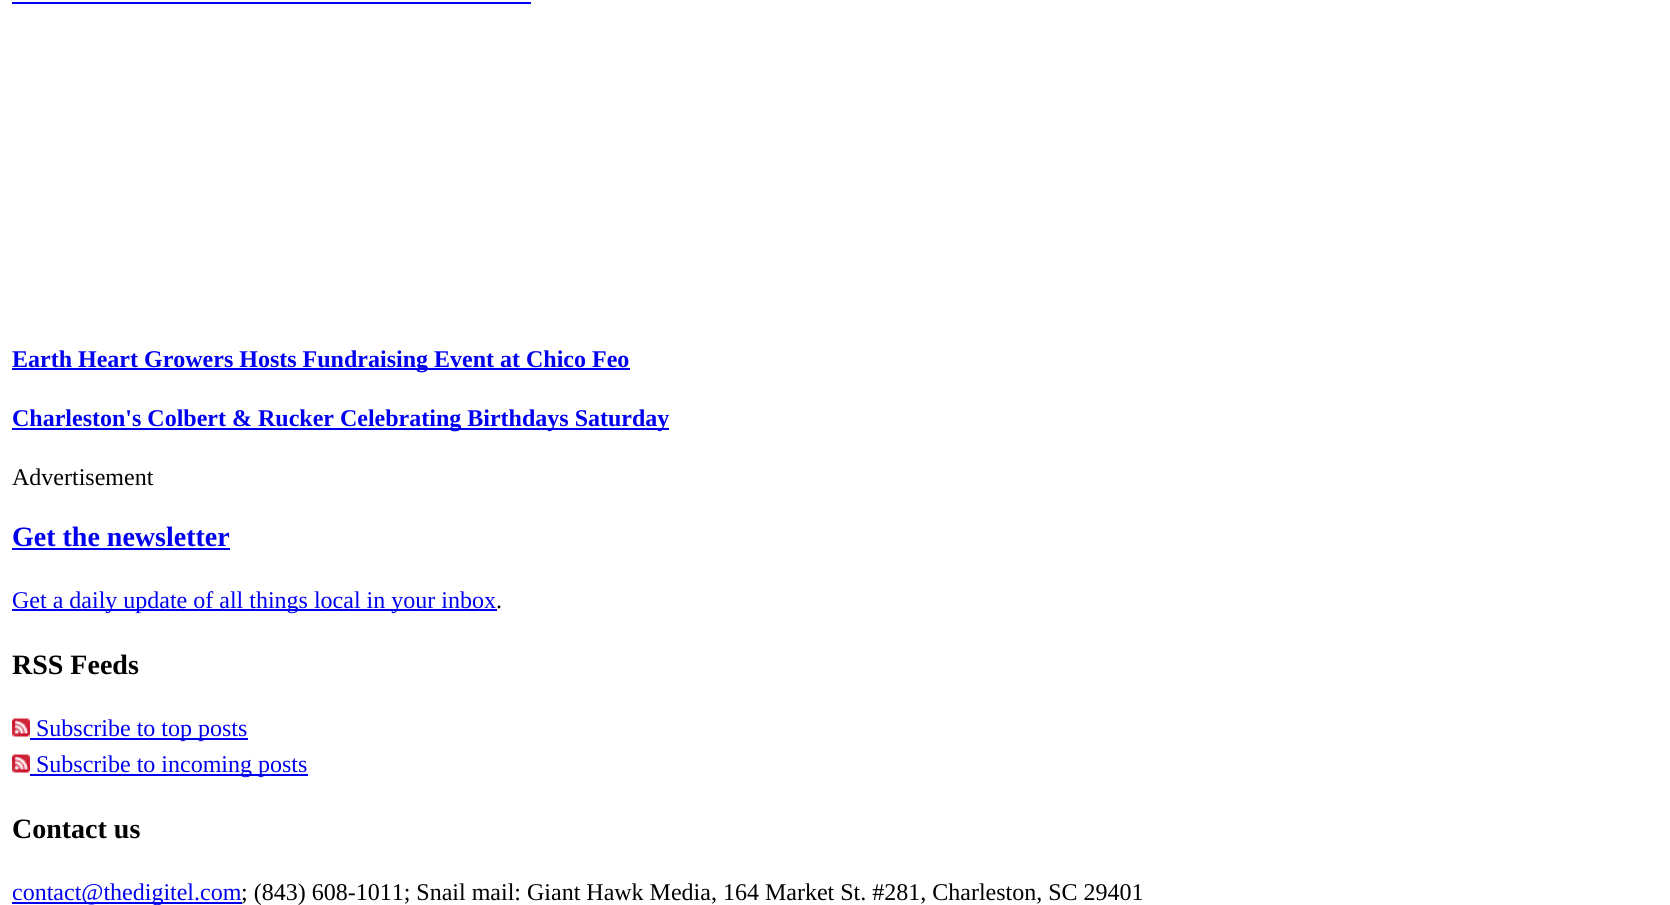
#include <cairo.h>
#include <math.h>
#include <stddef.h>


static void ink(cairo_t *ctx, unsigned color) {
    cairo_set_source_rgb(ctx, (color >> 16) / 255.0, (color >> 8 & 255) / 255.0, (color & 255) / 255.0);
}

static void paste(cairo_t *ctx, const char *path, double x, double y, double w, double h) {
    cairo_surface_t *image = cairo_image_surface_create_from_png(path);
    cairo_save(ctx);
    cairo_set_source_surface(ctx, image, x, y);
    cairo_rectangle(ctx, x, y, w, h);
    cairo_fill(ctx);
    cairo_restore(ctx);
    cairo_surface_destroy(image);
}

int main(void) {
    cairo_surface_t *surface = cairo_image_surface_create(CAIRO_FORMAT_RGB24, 1670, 905);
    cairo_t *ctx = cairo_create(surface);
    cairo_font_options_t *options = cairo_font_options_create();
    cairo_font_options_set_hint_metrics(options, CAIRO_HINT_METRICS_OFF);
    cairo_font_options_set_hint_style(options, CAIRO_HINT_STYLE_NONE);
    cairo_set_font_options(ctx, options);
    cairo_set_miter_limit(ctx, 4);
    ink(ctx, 0xFFFFFF);
    cairo_paint(ctx);
    ink(ctx, 0x0000EE);
    cairo_rectangle(ctx, 12, 2, 519, 2);
    cairo_fill(ctx);
    cairo_rectangle(ctx, 12, 368, 618, 2);
    cairo_fill(ctx);
    cairo_select_font_face(ctx, "Liberation Serif", CAIRO_FONT_SLANT_NORMAL, CAIRO_FONT_WEIGHT_BOLD);
    cairo_set_font_size(ctx, 24);
    cairo_move_to(ctx, 12, 367);
    cairo_show_text(ctx, "Earth Heart Growers Hosts Fundraising Event at Chico Feo");
    cairo_rectangle(ctx, 12, 428, 657, 2);
    cairo_fill(ctx);
    cairo_move_to(ctx, 12, 426);
    cairo_show_text(ctx, "Charleston's Colbert & Rucker Celebrating Birthdays Saturday");
    cairo_select_font_face(ctx, "Liberation Serif", CAIRO_FONT_SLANT_NORMAL, CAIRO_FONT_WEIGHT_NORMAL);
    ink(ctx, 0x000000);
    cairo_move_to(ctx, 12, 485);
    cairo_show_text(ctx, "Advertisement");
    cairo_select_font_face(ctx, "Liberation Serif", CAIRO_FONT_SLANT_NORMAL, CAIRO_FONT_WEIGHT_BOLD);
    cairo_set_font_size(ctx, 28);
    ink(ctx, 0x0000EE);
    cairo_move_to(ctx, 12, 546);
    cairo_show_text(ctx, "Get the newsletter");
    cairo_rectangle(ctx, 12, 548, 218, 2);
    cairo_fill(ctx);
    cairo_rectangle(ctx, 12, 609, 485, 2);
    cairo_fill(ctx);
    cairo_select_font_face(ctx, "Liberation Serif", CAIRO_FONT_SLANT_NORMAL, CAIRO_FONT_WEIGHT_NORMAL);
    cairo_set_font_size(ctx, 24);
    cairo_move_to(ctx, 12, 608);
    cairo_show_text(ctx, "Get a daily update of all things local in your inbox");
    ink(ctx, 0x000000);
    cairo_move_to(ctx, 496, 608);
    cairo_show_text(ctx, ".");
    cairo_select_font_face(ctx, "Liberation Serif", CAIRO_FONT_SLANT_NORMAL, CAIRO_FONT_WEIGHT_BOLD);
    cairo_set_font_size(ctx, 28);
    cairo_move_to(ctx, 12, 674);
    cairo_show_text(ctx, "RSS Feeds");
    paste(ctx, "media/1.png", 12, 718, 18, 19);
    ink(ctx, 0x0000EE);
    cairo_rectangle(ctx, 30, 738, 218, 2);
    cairo_fill(ctx);
    cairo_select_font_face(ctx, "Liberation Serif", CAIRO_FONT_SLANT_NORMAL, CAIRO_FONT_WEIGHT_NORMAL);
    cairo_set_font_size(ctx, 24);
    cairo_move_to(ctx, 36, 736);
    cairo_show_text(ctx, "Subscribe to top posts");
    paste(ctx, "media/1.png", 12, 754, 18, 19);
    cairo_rectangle(ctx, 30, 774, 278, 2);
    cairo_fill(ctx);
    cairo_move_to(ctx, 36, 772);
    cairo_show_text(ctx, "Subscribe to incoming posts");
    cairo_select_font_face(ctx, "Liberation Serif", CAIRO_FONT_SLANT_NORMAL, CAIRO_FONT_WEIGHT_BOLD);
    cairo_set_font_size(ctx, 28);
    ink(ctx, 0x000000);
    cairo_move_to(ctx, 12, 838);
    cairo_show_text(ctx, "Contact us");
    ink(ctx, 0x0000EE);
    cairo_rectangle(ctx, 12, 902, 230, 2);
    cairo_fill(ctx);
    cairo_select_font_face(ctx, "Liberation Serif", CAIRO_FONT_SLANT_NORMAL, CAIRO_FONT_WEIGHT_NORMAL);
    cairo_set_font_size(ctx, 24);
    cairo_move_to(ctx, 12, 900);
    cairo_show_text(ctx, "contact@thedigitel.com");
    ink(ctx, 0x000000);
    cairo_move_to(ctx, 241, 900);
    cairo_show_text(ctx, "; (843) 608-1011; Snail mail: Giant Hawk Media, 164 Market St. #281, Charleston, SC 29401");
    cairo_surface_write_to_png(surface, "image.png");
    cairo_font_options_destroy(options);
    cairo_destroy(ctx);
    cairo_surface_destroy(surface);
    return 0;
}
